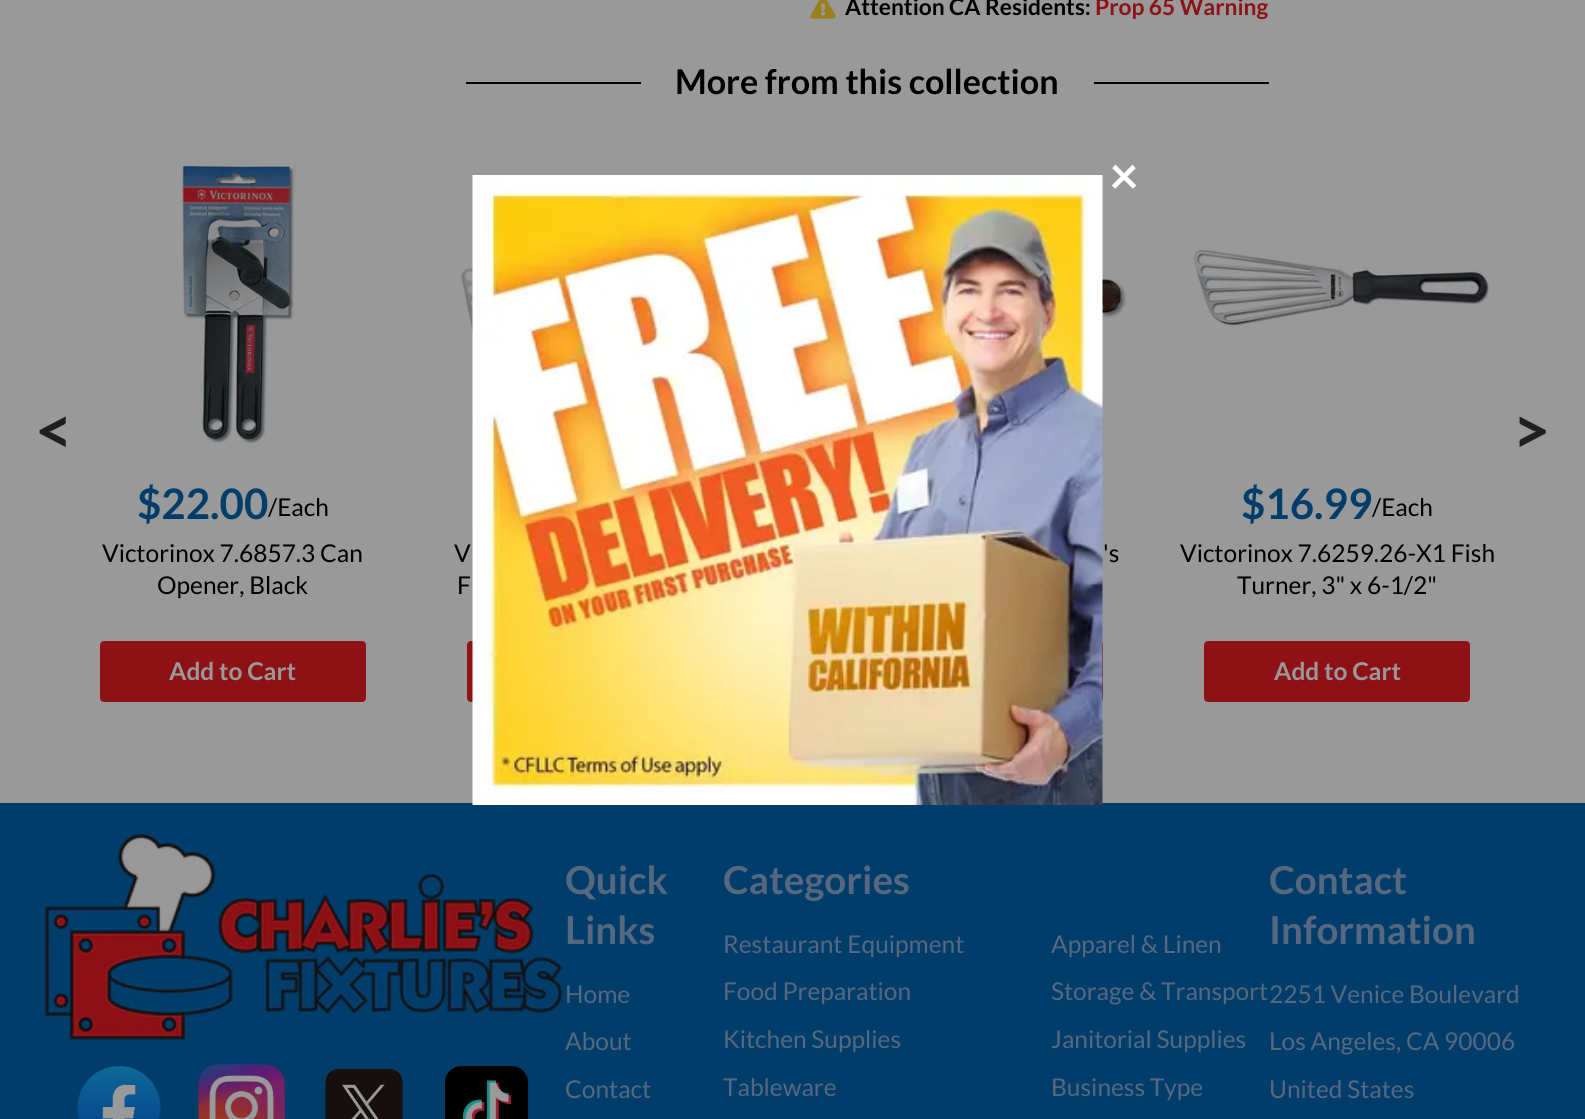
#include <cairo.h>
#include <math.h>
#include <stddef.h>

typedef struct { double x, y; const char *s; } line_t;

static void ink(cairo_t *ctx, unsigned color) {
    cairo_set_source_rgb(ctx, (color >> 16) / 255.0, (color >> 8 & 255) / 255.0, (color & 255) / 255.0);
}

static void round_path(cairo_t *ctx, double x, double y, double w, double h, double r) {
    cairo_new_sub_path(ctx);
    cairo_arc(ctx, x + w - r, y + h - r, r, 0, M_PI / 2);
    cairo_arc(ctx, x + r, y + h - r, r, M_PI / 2, M_PI);
    cairo_arc(ctx, x + r, y + r, r, M_PI, 1.5 * M_PI);
    cairo_arc(ctx, x + w - r, y + r, r, 1.5 * M_PI, 2 * M_PI);
    cairo_close_path(ctx);
}

static void paste(cairo_t *ctx, const char *path, double x, double y, double w, double h) {
    cairo_surface_t *image = cairo_image_surface_create_from_png(path);
    cairo_save(ctx);
    cairo_set_source_surface(ctx, image, x, y);
    cairo_rectangle(ctx, x, y, w, h);
    cairo_fill(ctx);
    cairo_restore(ctx);
    cairo_surface_destroy(image);
}

int main(void) {
    cairo_surface_t *surface = cairo_image_surface_create(CAIRO_FORMAT_RGB24, 1585, 1119);
    cairo_t *ctx = cairo_create(surface);
    cairo_font_options_t *options = cairo_font_options_create();
    cairo_font_options_set_hint_metrics(options, CAIRO_HINT_METRICS_OFF);
    cairo_font_options_set_hint_style(options, CAIRO_HINT_STYLE_NONE);
    cairo_set_font_options(ctx, options);
    cairo_set_miter_limit(ctx, 4);
    ink(ctx, 0x999999);
    cairo_paint(ctx);
    paste(ctx, "media/1.png", 810, 0, 26, 19);
    cairo_select_font_face(ctx, "Lato", CAIRO_FONT_SLANT_NORMAL, CAIRO_FONT_WEIGHT_BOLD);
    cairo_set_font_size(ctx, 22.75);
    ink(ctx, 0x000000);
    cairo_move_to(ctx, 845, 15);
    cairo_show_text(ctx, "Attention CA Residents:");
    ink(ctx, 0x8E1116);
    cairo_move_to(ctx, 1095, 15);
    cairo_show_text(ctx, "Prop 65 Warning");
    ink(ctx, 0x000000);
    cairo_rectangle(ctx, 466, 82, 175, 2);
    cairo_fill(ctx);
    cairo_set_font_size(ctx, 34.1);
    cairo_move_to(ctx, 675, 94);
    cairo_show_text(ctx, "More from this collection");
    cairo_rectangle(ctx, 1094, 82, 175, 2);
    cairo_fill(ctx);
    cairo_set_font_size(ctx, 66);
    ink(ctx, 0x1F1F1F);
    cairo_move_to(ctx, 35, 454);
    cairo_show_text(ctx, "<");
    cairo_move_to(ctx, 1512, 454);
    cairo_show_text(ctx, ">");
    paste(ctx, "media/2.png", 180, 161, 116, 283);
    cairo_set_font_size(ctx, 42);
    ink(ctx, 0x003D6B);
    cairo_move_to(ctx, 137, 519);
    cairo_show_text(ctx, "$22.00");
    cairo_select_font_face(ctx, "Lato", CAIRO_FONT_SLANT_NORMAL, CAIRO_FONT_WEIGHT_NORMAL);
    cairo_set_font_size(ctx, 24.5);
    ink(ctx, 0x000000);
    {
        static const line_t items[] = {
            {268, 516, "/Each"},
            {102, 562, "Victorinox 7.6857.3 Can"},
            {157, 594, "Opener, Black"},
        };
        for (size_t i = 0; i < sizeof items / sizeof *items; i++) {
            cairo_move_to(ctx, items[i].x, items[i].y);
            cairo_show_text(ctx, items[i].s);
        }
    }
    ink(ctx, 0x8E1116);
    round_path(ctx, 101, 642, 264, 59, 3);
    cairo_fill_preserve(ctx);
    cairo_stroke(ctx);
    cairo_select_font_face(ctx, "Lato", CAIRO_FONT_SLANT_NORMAL, CAIRO_FONT_WEIGHT_BOLD);
    ink(ctx, 0x999999);
    cairo_move_to(ctx, 169, 680);
    cairo_show_text(ctx, "Add to Cart");
    paste(ctx, "media/3.png", 461, 267, 12, 67);
    cairo_select_font_face(ctx, "Lato", CAIRO_FONT_SLANT_NORMAL, CAIRO_FONT_WEIGHT_NORMAL);
    ink(ctx, 0x000000);
    cairo_move_to(ctx, 454, 562);
    cairo_show_text(ctx, "V");
    cairo_move_to(ctx, 457, 594);
    cairo_show_text(ctx, "F");
    ink(ctx, 0x8E1116);
    round_path(ctx, 468, 642, 264, 59, 3);
    cairo_fill_preserve(ctx);
    cairo_stroke(ctx);
    paste(ctx, "media/4.png", 1102, 279, 24, 40);
    ink(ctx, 0x000000);
    cairo_move_to(ctx, 1103, 562);
    cairo_show_text(ctx, "'s");
    round_path(ctx, 838, 642, 264, 59, 3);
    ink(ctx, 0x8E1116);
    cairo_stroke(ctx);
    paste(ctx, "media/5.png", 1192, 249, 297, 77);
    cairo_select_font_face(ctx, "Lato", CAIRO_FONT_SLANT_NORMAL, CAIRO_FONT_WEIGHT_BOLD);
    cairo_set_font_size(ctx, 42);
    ink(ctx, 0x003D6B);
    cairo_move_to(ctx, 1241, 519);
    cairo_show_text(ctx, "$16.99");
    cairo_select_font_face(ctx, "Lato", CAIRO_FONT_SLANT_NORMAL, CAIRO_FONT_WEIGHT_NORMAL);
    cairo_set_font_size(ctx, 24.5);
    ink(ctx, 0x000000);
    {
        static const line_t items[] = {
            {1372, 516, "/Each"},
            {1180, 562, "Victorinox 7.6259.26-X1 Fish"},
            {1237, 594, "Turner, 3\" x 6-1/2\""},
        };
        for (size_t i = 0; i < sizeof items / sizeof *items; i++) {
            cairo_move_to(ctx, items[i].x, items[i].y);
            cairo_show_text(ctx, items[i].s);
        }
    }
    ink(ctx, 0x8E1116);
    round_path(ctx, 1205, 642, 264, 59, 3);
    cairo_fill_preserve(ctx);
    cairo_stroke(ctx);
    cairo_select_font_face(ctx, "Lato", CAIRO_FONT_SLANT_NORMAL, CAIRO_FONT_WEIGHT_BOLD);
    ink(ctx, 0x999999);
    cairo_move_to(ctx, 1274, 680);
    cairo_show_text(ctx, "Add to Cart");
    ink(ctx, 0x003D6B);
    cairo_rectangle(ctx, 0, 803, 1585, 316);
    cairo_fill(ctx);
    paste(ctx, "media/6.png", 472, 175, 631, 630);
    cairo_set_font_size(ctx, 52);
    ink(ctx, 0xFFFFFF);
    cairo_move_to(ctx, 1109, 194);
    cairo_show_text(ctx, "×");
    paste(ctx, "media/7.png", 44, 833, 519, 208);
    paste(ctx, "media/8.png", 77, 1066, 84, 53);
    paste(ctx, "media/9.png", 198, 1064, 87, 55);
    paste(ctx, "media/10.png", 325, 1069, 78, 50);
    paste(ctx, "media/11.png", 445, 1066, 84, 53);
    cairo_set_font_size(ctx, 38.5);
    ink(ctx, 0x55687F);
    cairo_move_to(ctx, 565, 894);
    cairo_show_text(ctx, "Quick");
    cairo_move_to(ctx, 565, 944);
    cairo_show_text(ctx, "Links");
    cairo_select_font_face(ctx, "Lato", CAIRO_FONT_SLANT_NORMAL, CAIRO_FONT_WEIGHT_NORMAL);
    cairo_set_font_size(ctx, 24.5);
    {
        static const line_t items[] = {
            {565, 1003, "Home"},
            {565, 1050, "About"},
            {565, 1098, "Contact"},
        };
        for (size_t i = 0; i < sizeof items / sizeof *items; i++) {
            cairo_move_to(ctx, items[i].x, items[i].y);
            cairo_show_text(ctx, items[i].s);
        }
    }
    cairo_select_font_face(ctx, "Lato", CAIRO_FONT_SLANT_NORMAL, CAIRO_FONT_WEIGHT_BOLD);
    cairo_set_font_size(ctx, 38.5);
    cairo_move_to(ctx, 723, 894);
    cairo_show_text(ctx, "Categories");
    cairo_select_font_face(ctx, "Lato", CAIRO_FONT_SLANT_NORMAL, CAIRO_FONT_WEIGHT_NORMAL);
    cairo_set_font_size(ctx, 24.5);
    {
        static const line_t items[] = {
            {723, 953, "Restaurant Equipment"},
            {723, 1000, "Food Preparation"},
            {723, 1048, "Kitchen Supplies"},
            {723, 1096, "Tableware"},
            {1051, 953, "Apparel & Linen"},
            {1051, 1000, "Storage & Transport"},
            {1051, 1048, "Janitorial Supplies"},
            {1051, 1096, "Business Type"},
        };
        for (size_t i = 0; i < sizeof items / sizeof *items; i++) {
            cairo_move_to(ctx, items[i].x, items[i].y);
            cairo_show_text(ctx, items[i].s);
        }
    }
    cairo_select_font_face(ctx, "Lato", CAIRO_FONT_SLANT_NORMAL, CAIRO_FONT_WEIGHT_BOLD);
    cairo_set_font_size(ctx, 38.5);
    cairo_move_to(ctx, 1269, 894);
    cairo_show_text(ctx, "Contact");
    cairo_move_to(ctx, 1269, 944);
    cairo_show_text(ctx, "Information");
    cairo_select_font_face(ctx, "Lato", CAIRO_FONT_SLANT_NORMAL, CAIRO_FONT_WEIGHT_NORMAL);
    cairo_set_font_size(ctx, 24.5);
    {
        static const line_t items[] = {
            {1269, 1003, "2251 Venice Boulevard"},
            {1269, 1050, "Los Angeles, CA 90006"},
            {1269, 1098, "United States"},
        };
        for (size_t i = 0; i < sizeof items / sizeof *items; i++) {
            cairo_move_to(ctx, items[i].x, items[i].y);
            cairo_show_text(ctx, items[i].s);
        }
    }
    cairo_surface_write_to_png(surface, "image.png");
    cairo_font_options_destroy(options);
    cairo_destroy(ctx);
    cairo_surface_destroy(surface);
    return 0;
}
